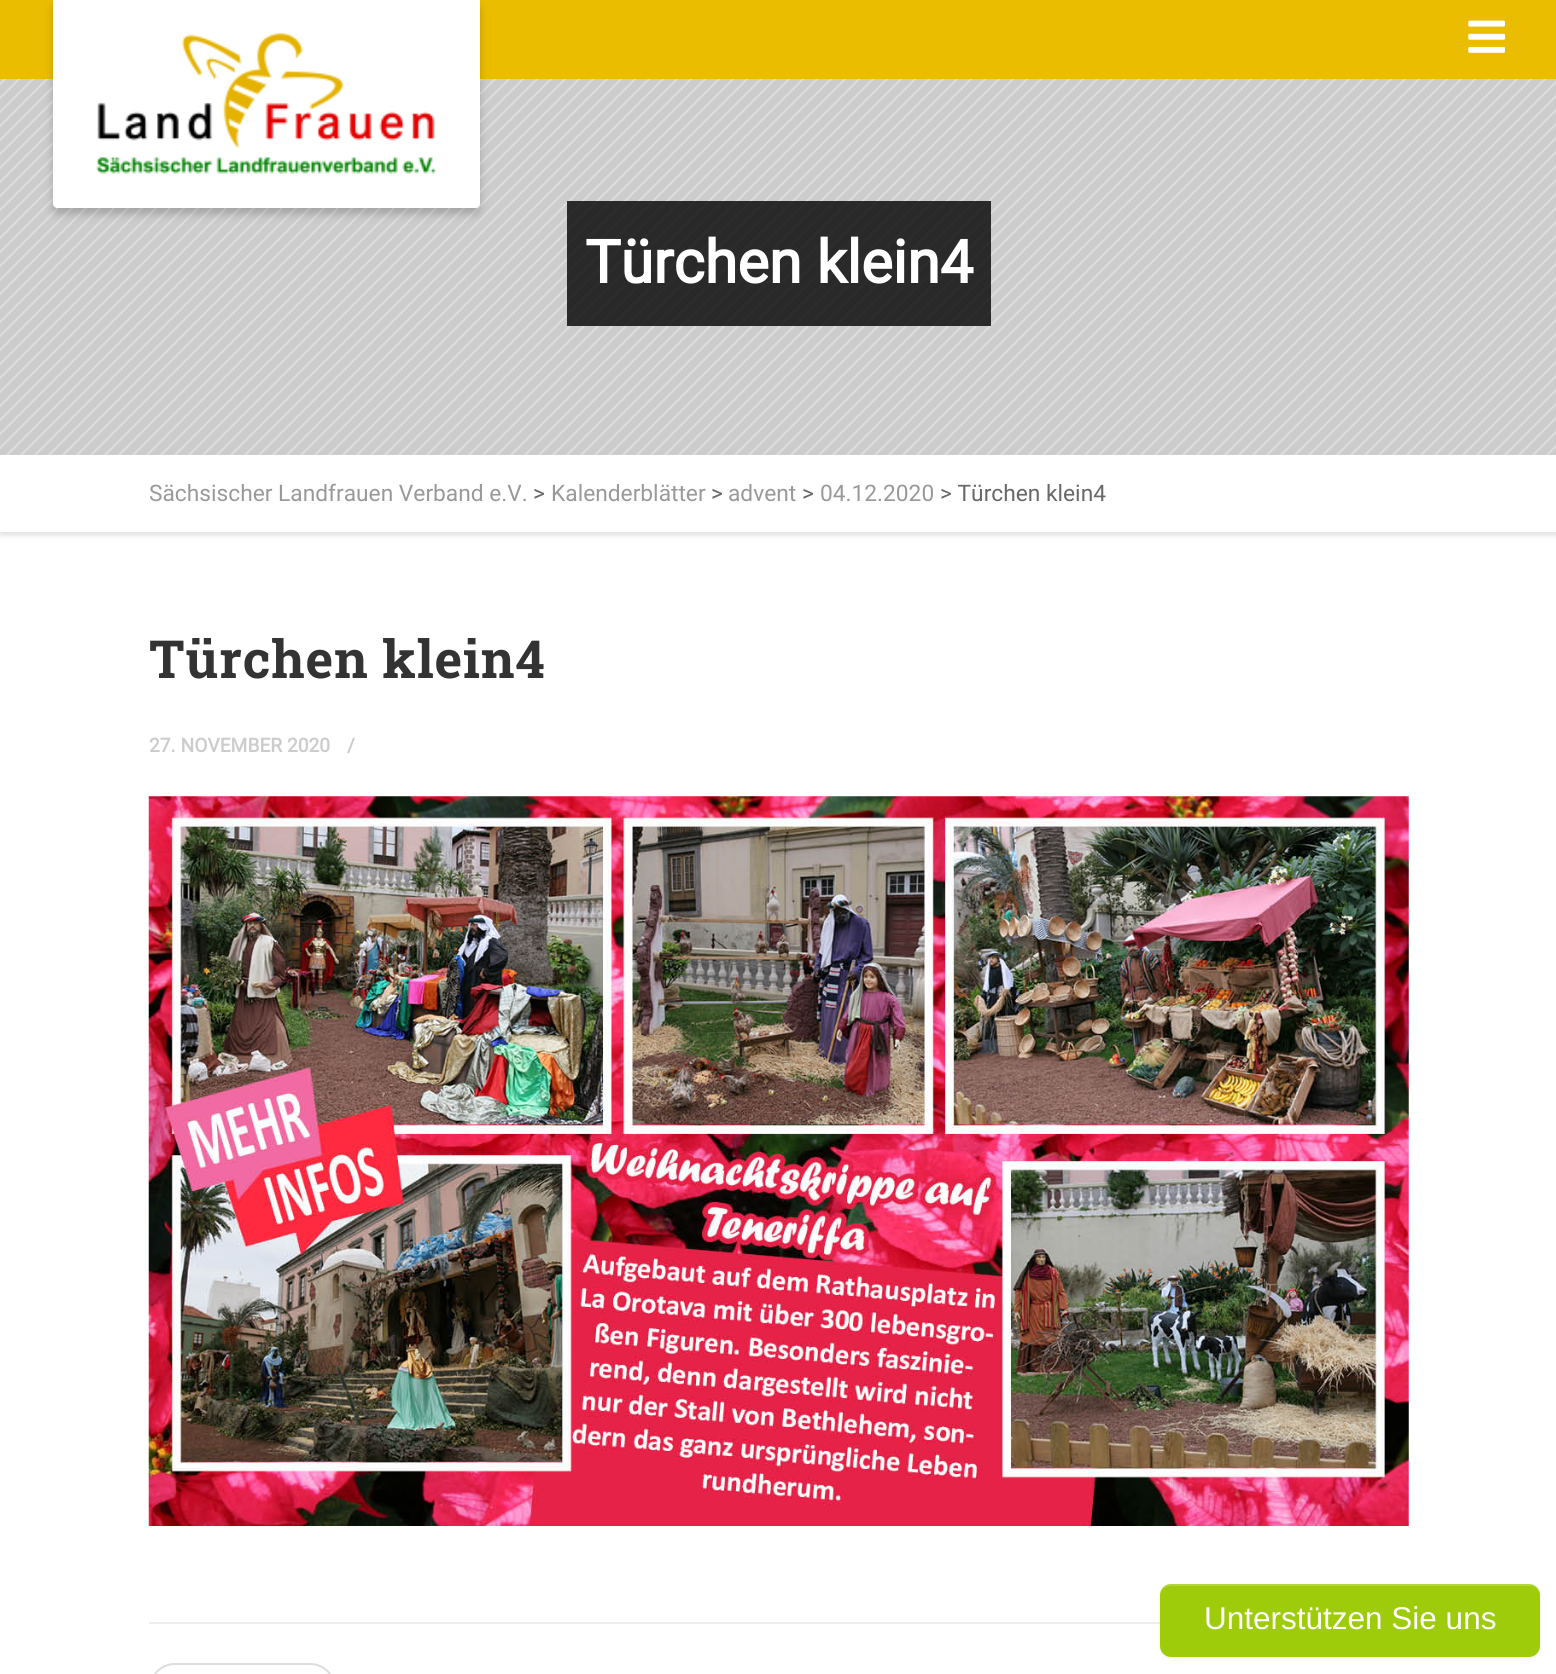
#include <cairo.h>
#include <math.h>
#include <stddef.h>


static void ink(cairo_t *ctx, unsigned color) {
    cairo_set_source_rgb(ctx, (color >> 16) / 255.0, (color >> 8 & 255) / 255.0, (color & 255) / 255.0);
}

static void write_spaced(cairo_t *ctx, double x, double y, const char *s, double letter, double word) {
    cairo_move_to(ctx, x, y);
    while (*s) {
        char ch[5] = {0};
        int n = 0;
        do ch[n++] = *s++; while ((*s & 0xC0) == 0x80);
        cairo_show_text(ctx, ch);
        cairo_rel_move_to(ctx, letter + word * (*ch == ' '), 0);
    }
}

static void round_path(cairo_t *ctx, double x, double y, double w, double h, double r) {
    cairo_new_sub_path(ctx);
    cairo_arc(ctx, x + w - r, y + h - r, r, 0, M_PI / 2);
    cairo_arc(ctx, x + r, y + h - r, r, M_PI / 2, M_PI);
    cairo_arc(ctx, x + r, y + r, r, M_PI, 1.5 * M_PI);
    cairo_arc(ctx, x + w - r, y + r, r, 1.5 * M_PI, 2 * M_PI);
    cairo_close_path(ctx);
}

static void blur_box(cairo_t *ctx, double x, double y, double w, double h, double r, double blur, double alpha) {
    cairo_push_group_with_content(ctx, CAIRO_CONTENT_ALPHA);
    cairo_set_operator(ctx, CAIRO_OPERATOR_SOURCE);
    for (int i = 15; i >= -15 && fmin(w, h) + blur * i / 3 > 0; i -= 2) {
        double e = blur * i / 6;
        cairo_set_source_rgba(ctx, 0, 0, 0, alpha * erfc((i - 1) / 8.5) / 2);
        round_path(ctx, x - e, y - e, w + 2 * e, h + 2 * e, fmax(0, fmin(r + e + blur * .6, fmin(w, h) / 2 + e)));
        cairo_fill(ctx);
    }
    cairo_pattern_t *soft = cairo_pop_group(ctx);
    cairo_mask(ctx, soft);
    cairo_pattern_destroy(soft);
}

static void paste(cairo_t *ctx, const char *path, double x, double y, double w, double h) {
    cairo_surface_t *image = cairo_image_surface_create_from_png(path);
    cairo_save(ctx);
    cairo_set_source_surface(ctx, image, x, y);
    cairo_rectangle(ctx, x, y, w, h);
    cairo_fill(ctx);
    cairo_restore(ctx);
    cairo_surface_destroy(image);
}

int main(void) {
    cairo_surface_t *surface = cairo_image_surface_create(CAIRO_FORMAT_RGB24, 1556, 1674);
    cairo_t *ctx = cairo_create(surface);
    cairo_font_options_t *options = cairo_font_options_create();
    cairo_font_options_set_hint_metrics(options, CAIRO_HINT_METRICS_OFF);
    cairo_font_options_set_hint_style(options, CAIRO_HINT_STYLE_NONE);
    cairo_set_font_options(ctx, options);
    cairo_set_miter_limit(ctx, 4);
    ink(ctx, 0xFFFFFF);
    cairo_paint(ctx);
    ink(ctx, 0xEBBD00);
    cairo_rectangle(ctx, 0, 0, 1556, 79);
    cairo_fill(ctx);
    cairo_save(ctx);
    cairo_rectangle(ctx, 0, 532, 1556, 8);
    cairo_clip(ctx);
    ink(ctx, 0xE6E6E6);
    blur_box(ctx, 0, 459, 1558, 77, 0, 2, 1);
    cairo_restore(ctx);
    ink(ctx, 0xCCCCCC);
    cairo_rectangle(ctx, 0, 79, 1556, 376);
    cairo_fill(ctx);
    paste(ctx, "media/3.png", 0, 79, 1556, 376);
    ink(ctx, 0x000000);
    blur_box(ctx, 53, 5, 427, 209, 4, 4.5, 0.2);
    ink(ctx, 0xFFFFFF);
    cairo_new_path(ctx);
    cairo_move_to(ctx, 53, 0);
    cairo_line_to(ctx, 480, 0);
    cairo_line_to(ctx, 480, 204);
    cairo_curve_to(ctx, 480, 206, 478, 208, 476, 208);
    cairo_line_to(ctx, 57, 208);
    cairo_curve_to(ctx, 55, 208, 53, 206, 53, 204);
    cairo_close_path(ctx);
    cairo_fill(ctx);
    paste(ctx, "media/1.png", 96, 32, 341, 142);
    paste(ctx, "media/2.png", 1468, 20, 37, 33);
    cairo_set_source_rgba(ctx, 0, 0, 0, 0.8);
    cairo_rectangle(ctx, 567, 201, 424, 125);
    cairo_fill(ctx);
    cairo_select_font_face(ctx, "Roboto", CAIRO_FONT_SLANT_NORMAL, CAIRO_FONT_WEIGHT_BOLD);
    cairo_set_font_size(ctx, 59.5);
    ink(ctx, 0xFFFFFF);
    cairo_move_to(ctx, 585, 283);
    cairo_show_text(ctx, "Türchen klein4");
    cairo_select_font_face(ctx, "Roboto", CAIRO_FONT_SLANT_NORMAL, CAIRO_FONT_WEIGHT_NORMAL);
    cairo_set_font_size(ctx, 22.75);
    ink(ctx, 0x999999);
    cairo_move_to(ctx, 149, 501);
    cairo_show_text(ctx, "Sächsischer Landfrauen Verband e.V.");
    ink(ctx, 0x686868);
    cairo_move_to(ctx, 533, 501);
    cairo_show_text(ctx, ">");
    ink(ctx, 0x999999);
    cairo_move_to(ctx, 551, 501);
    cairo_show_text(ctx, "Kalenderblätter");
    ink(ctx, 0x686868);
    cairo_move_to(ctx, 711, 501);
    cairo_show_text(ctx, ">");
    ink(ctx, 0x999999);
    cairo_move_to(ctx, 728, 501);
    cairo_show_text(ctx, "advent");
    ink(ctx, 0x686868);
    cairo_move_to(ctx, 802, 501);
    cairo_show_text(ctx, ">");
    ink(ctx, 0x999999);
    cairo_move_to(ctx, 820, 501);
    cairo_show_text(ctx, "04.12.2020");
    ink(ctx, 0x686868);
    cairo_move_to(ctx, 940, 501);
    cairo_show_text(ctx, "> Türchen klein4");
    cairo_select_font_face(ctx, "Roboto Slab", CAIRO_FONT_SLANT_NORMAL, CAIRO_FONT_WEIGHT_BOLD);
    cairo_set_font_size(ctx, 52.5);
    ink(ctx, 0x333333);
    write_spaced(ctx, 149, 678, "Türchen klein4", 0.9, 0);
    cairo_select_font_face(ctx, "Roboto", CAIRO_FONT_SLANT_NORMAL, CAIRO_FONT_WEIGHT_BOLD);
    cairo_set_font_size(ctx, 19.25);
    ink(ctx, 0xCDCBCB);
    cairo_move_to(ctx, 149, 752);
    cairo_show_text(ctx, "27. NOVEMBER 2020");
    cairo_move_to(ctx, 347, 752);
    cairo_show_text(ctx, "/");
    paste(ctx, "media/4.png", 148, 796, 1261, 730);
    ink(ctx, 0xEEEEEE);
    cairo_rectangle(ctx, 149, 1622, 1011, 2);
    cairo_fill(ctx);
    round_path(ctx, 150, 1664, 185, 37, 25);
    ink(ctx, 0xDDDDDD);
    cairo_stroke(ctx);
    ink(ctx, 0x000000);
    blur_box(ctx, 1160, 1586, 380, 73, 11, 2, 0.05);
    ink(ctx, 0x9ECB0A);
    round_path(ctx, 1160, 1584, 380, 73, 11);
    cairo_fill(ctx);
    cairo_set_source_rgba(ctx, 1, 1, 1, 0.2);
    cairo_new_path(ctx);
    cairo_move_to(ctx, 1171, 1586);
    cairo_line_to(ctx, 1530, 1586);
    cairo_curve_to(ctx, 1535, 1586, 1540, 1590, 1540, 1596);
    cairo_line_to(ctx, 1540, 1595);
    cairo_curve_to(ctx, 1540, 1589, 1535, 1584, 1529, 1584);
    cairo_line_to(ctx, 1171, 1584);
    cairo_curve_to(ctx, 1165, 1584, 1160, 1589, 1160, 1595);
    cairo_line_to(ctx, 1160, 1596);
    cairo_curve_to(ctx, 1160, 1590, 1165, 1586, 1171, 1586);
    cairo_close_path(ctx);
    cairo_fill(ctx);
    cairo_select_font_face(ctx, "Liberation Sans", CAIRO_FONT_SLANT_NORMAL, CAIRO_FONT_WEIGHT_NORMAL);
    cairo_set_font_size(ctx, 31.5);
    ink(ctx, 0xFFFFFF);
    cairo_move_to(ctx, 1204, 1629);
    cairo_show_text(ctx, "Unterstützen Sie uns");
    cairo_surface_write_to_png(surface, "image.png");
    cairo_font_options_destroy(options);
    cairo_destroy(ctx);
    cairo_surface_destroy(surface);
    return 0;
}
